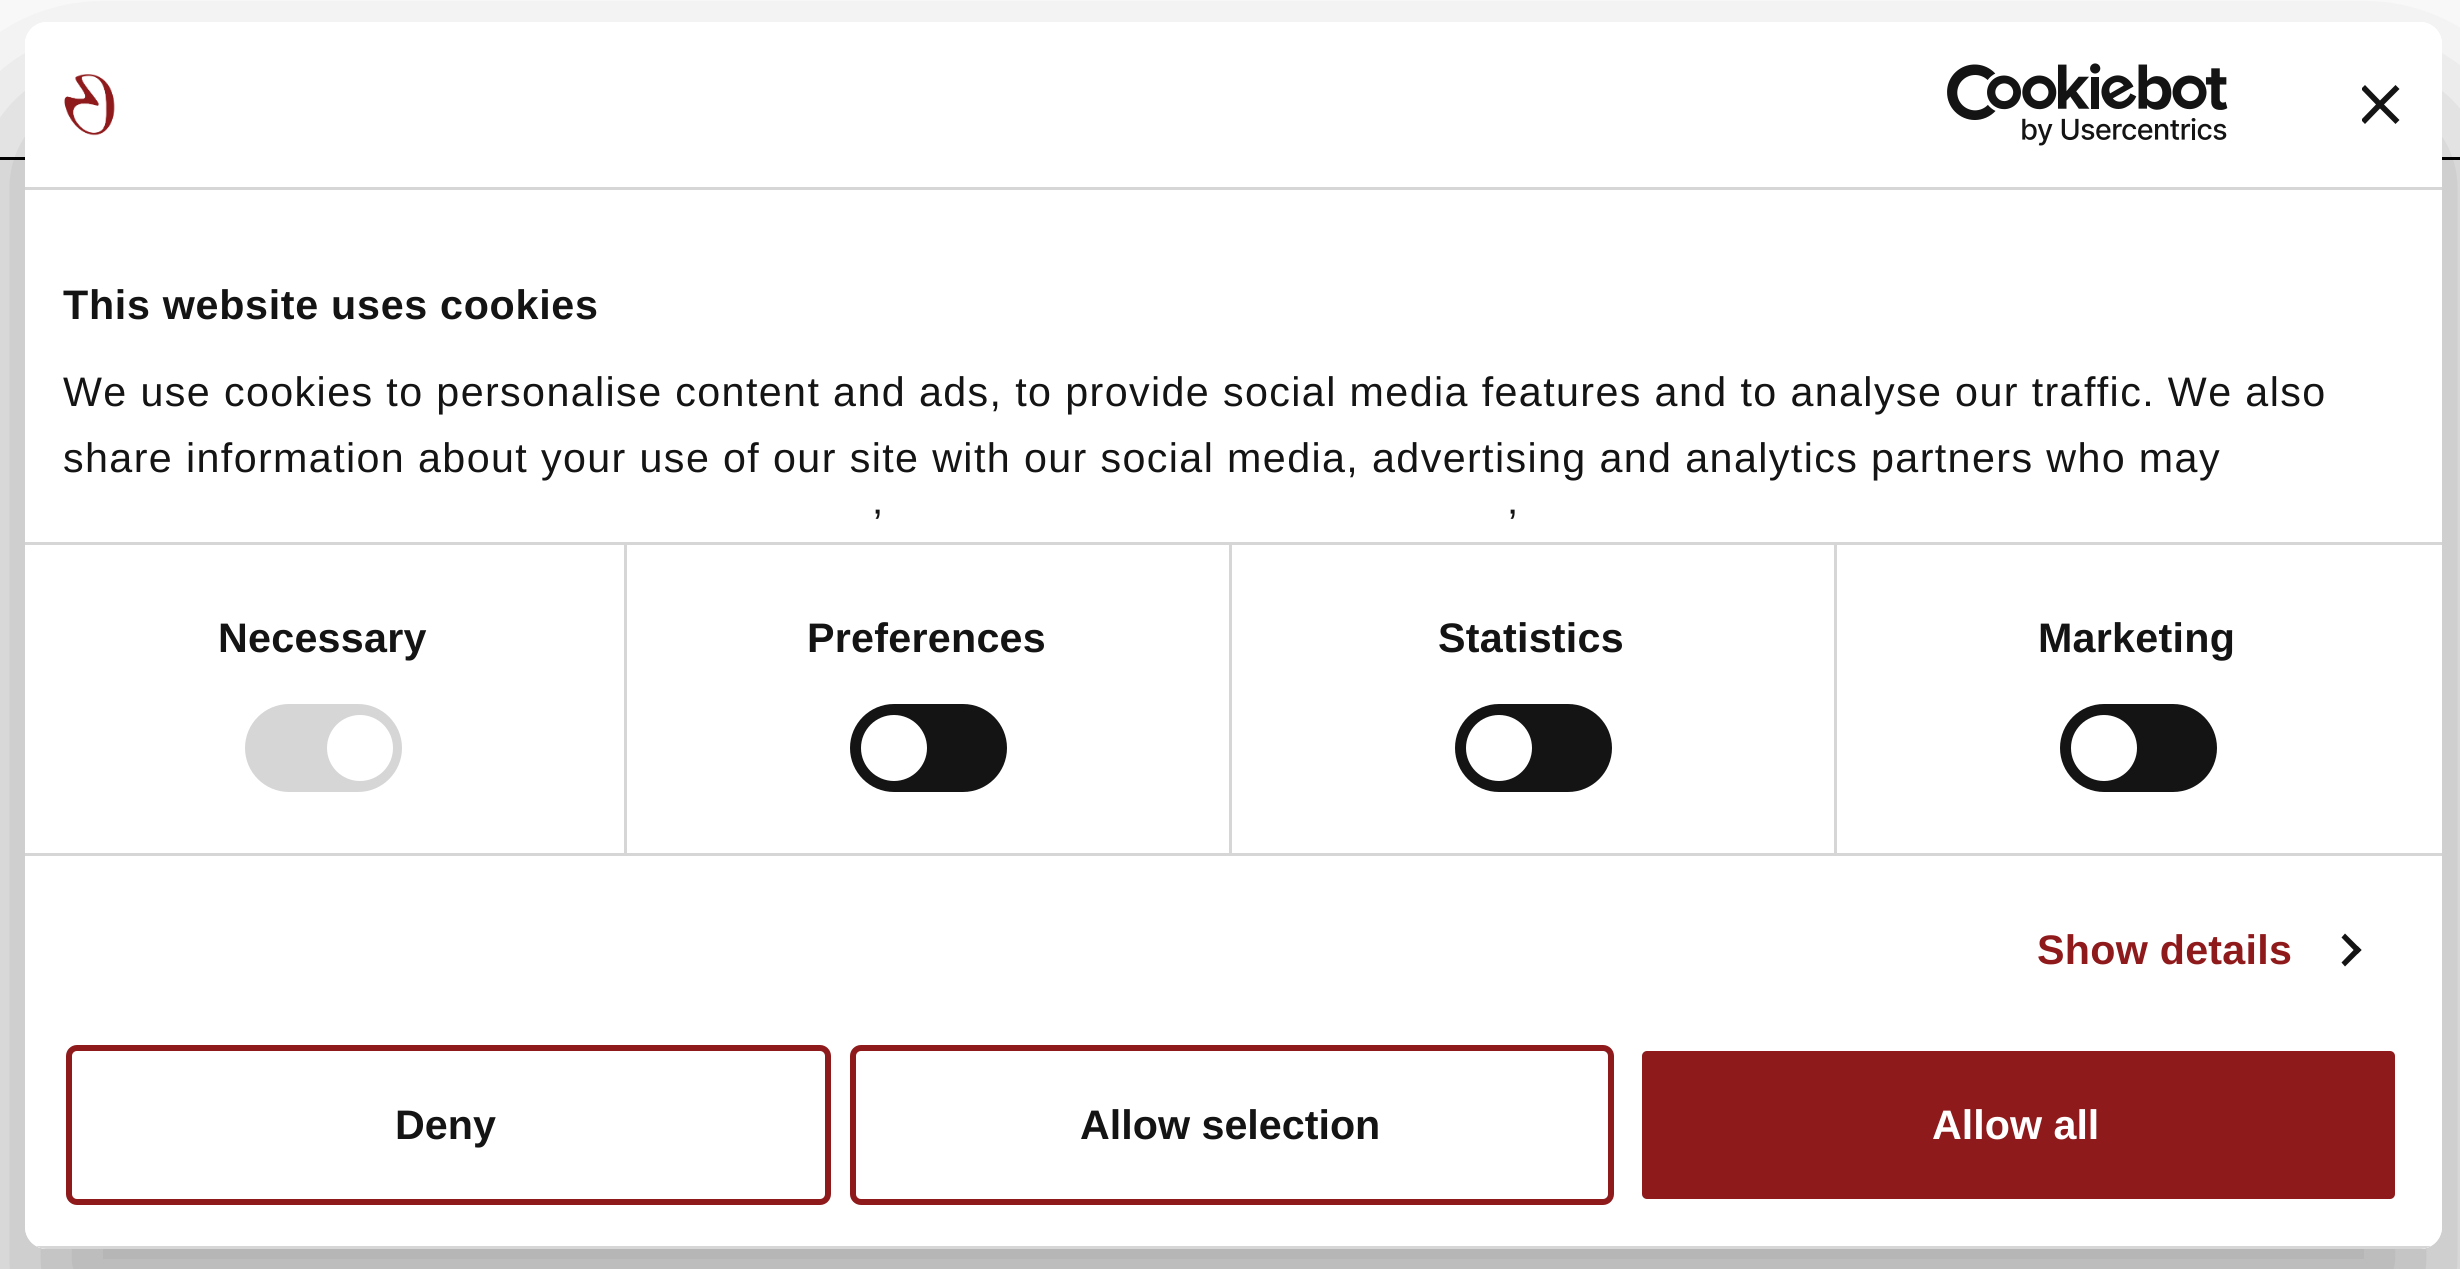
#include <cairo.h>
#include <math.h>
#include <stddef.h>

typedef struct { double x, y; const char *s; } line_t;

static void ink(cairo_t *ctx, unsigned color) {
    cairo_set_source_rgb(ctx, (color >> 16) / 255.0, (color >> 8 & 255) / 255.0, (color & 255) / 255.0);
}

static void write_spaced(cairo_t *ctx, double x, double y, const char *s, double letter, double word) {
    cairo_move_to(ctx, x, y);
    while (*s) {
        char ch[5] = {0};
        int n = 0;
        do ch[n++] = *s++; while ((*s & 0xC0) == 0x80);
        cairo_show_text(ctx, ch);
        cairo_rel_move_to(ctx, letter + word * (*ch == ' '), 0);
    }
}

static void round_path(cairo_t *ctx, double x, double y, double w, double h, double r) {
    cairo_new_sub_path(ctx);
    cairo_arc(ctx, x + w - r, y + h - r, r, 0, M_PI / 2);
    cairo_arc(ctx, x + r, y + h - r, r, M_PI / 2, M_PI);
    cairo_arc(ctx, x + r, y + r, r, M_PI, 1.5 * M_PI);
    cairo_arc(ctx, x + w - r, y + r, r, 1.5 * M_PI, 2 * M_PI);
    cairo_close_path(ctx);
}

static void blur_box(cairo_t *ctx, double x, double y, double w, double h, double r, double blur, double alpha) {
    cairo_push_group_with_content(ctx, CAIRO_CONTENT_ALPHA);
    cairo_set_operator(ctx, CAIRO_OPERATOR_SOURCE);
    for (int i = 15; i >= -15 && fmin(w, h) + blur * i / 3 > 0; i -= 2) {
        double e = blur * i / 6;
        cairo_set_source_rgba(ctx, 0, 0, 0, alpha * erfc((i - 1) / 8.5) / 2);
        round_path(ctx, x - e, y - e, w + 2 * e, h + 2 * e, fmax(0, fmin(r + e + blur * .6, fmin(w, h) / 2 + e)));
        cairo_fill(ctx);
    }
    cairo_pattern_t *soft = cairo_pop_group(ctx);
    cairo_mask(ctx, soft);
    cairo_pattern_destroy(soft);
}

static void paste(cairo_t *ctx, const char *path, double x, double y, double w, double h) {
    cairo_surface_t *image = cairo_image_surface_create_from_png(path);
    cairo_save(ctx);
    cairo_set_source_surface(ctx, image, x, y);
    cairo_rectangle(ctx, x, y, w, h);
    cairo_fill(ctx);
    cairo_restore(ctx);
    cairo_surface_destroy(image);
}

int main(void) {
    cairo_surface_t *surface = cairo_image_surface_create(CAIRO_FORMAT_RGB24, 2460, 1269);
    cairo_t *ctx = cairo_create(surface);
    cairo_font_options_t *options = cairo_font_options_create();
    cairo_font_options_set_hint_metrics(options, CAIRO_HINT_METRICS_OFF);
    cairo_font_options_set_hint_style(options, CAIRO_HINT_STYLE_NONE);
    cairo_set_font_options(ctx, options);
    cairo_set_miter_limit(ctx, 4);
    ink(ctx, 0xFFFFFF);
    cairo_paint(ctx);
    ink(ctx, 0x020202);
    cairo_rectangle(ctx, 0, 157, 2460, 3);
    cairo_fill(ctx);
    ink(ctx, 0xF3F3F3);
    cairo_rectangle(ctx, 0, 160, 2460, 1109);
    cairo_fill(ctx);
    cairo_save(ctx);
    cairo_set_fill_rule(ctx, CAIRO_FILL_RULE_EVEN_ODD);
    cairo_new_path(ctx);
    cairo_move_to(ctx, 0, 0);
    cairo_line_to(ctx, 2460, 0);
    cairo_line_to(ctx, 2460, 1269);
    cairo_line_to(ctx, 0, 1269);
    cairo_close_path(ctx);
    cairo_move_to(ctx, 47, 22);
    cairo_line_to(ctx, 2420, 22);
    cairo_curve_to(ctx, 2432, 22, 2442, 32, 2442, 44);
    cairo_line_to(ctx, 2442, 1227);
    cairo_curve_to(ctx, 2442, 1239, 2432, 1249, 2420, 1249);
    cairo_line_to(ctx, 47, 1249);
    cairo_curve_to(ctx, 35, 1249, 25, 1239, 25, 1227);
    cairo_line_to(ctx, 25, 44);
    cairo_curve_to(ctx, 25, 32, 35, 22, 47, 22);
    cairo_close_path(ctx);
    cairo_clip(ctx);
    ink(ctx, 0x000000);
    blur_box(ctx, 25, 110, 2417, 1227, 22, 93.5, 0.3);
    cairo_restore(ctx);
    ink(ctx, 0xFFFFFF);
    round_path(ctx, 25, 22, 2417, 1227, 22);
    cairo_fill(ctx);
    ink(ctx, 0xD6D6D6);
    cairo_rectangle(ctx, 25, 187, 2417, 3);
    cairo_fill(ctx);
    paste(ctx, "media/1.png", 64, 74, 51, 62);
    paste(ctx, "media/2.png", 1947, 63, 281, 83);
    cairo_save(ctx);
    cairo_rectangle(ctx, 2362, 85, 39, 39);
    cairo_clip(ctx);
    ink(ctx, 0x141414);
    cairo_new_path(ctx);
    cairo_move_to(ctx, 2399.5, 89);
    cairo_line_to(ctx, 2395.5, 85);
    cairo_line_to(ctx, 2380, 100.5);
    cairo_line_to(ctx, 2365, 85);
    cairo_line_to(ctx, 2361, 89);
    cairo_line_to(ctx, 2376, 104.5);
    cairo_line_to(ctx, 2361, 120);
    cairo_line_to(ctx, 2365, 124);
    cairo_line_to(ctx, 2380, 108.5);
    cairo_line_to(ctx, 2395.5, 124);
    cairo_line_to(ctx, 2399.5, 120);
    cairo_line_to(ctx, 2384, 104.5);
    cairo_close_path(ctx);
    cairo_fill(ctx);
    cairo_restore(ctx);
    cairo_rectangle(ctx, 25, 542, 2417, 3);
    cairo_fill(ctx);
    cairo_select_font_face(ctx, "Liberation Sans", CAIRO_FONT_SLANT_NORMAL, CAIRO_FONT_WEIGHT_BOLD);
    cairo_set_font_size(ctx, 41.25);
    ink(ctx, 0x141414);
    write_spaced(ctx, 63, 319, "This website uses cookies", 0.7, 0);
    cairo_select_font_face(ctx, "Liberation Sans", CAIRO_FONT_SLANT_NORMAL, CAIRO_FONT_WEIGHT_NORMAL);
    {
        static const line_t items[] = {
            {63, 406, "We use cookies to personalise content and ads, to provide social media features and to analyse our traffic. We also"},
            {63, 472, "share information about your use of our site with our social media, advertising and analytics partners who may"},
            {873, 538, "’"},
            {1508, 538, "’"},
        };
        for (size_t i = 0; i < sizeof items / sizeof *items; i++) {
            write_spaced(ctx, items[i].x, items[i].y, items[i].s, 1.38, 0);
        }
    }
    ink(ctx, 0xD6D6D6);
    cairo_rectangle(ctx, 25, 853, 2417, 3);
    cairo_fill(ctx);
    cairo_rectangle(ctx, 624, 545, 3, 308);
    cairo_fill(ctx);
    cairo_select_font_face(ctx, "Liberation Sans", CAIRO_FONT_SLANT_NORMAL, CAIRO_FONT_WEIGHT_BOLD);
    ink(ctx, 0x141414);
    write_spaced(ctx, 218, 652, "Necessary", 0.25, 0);
    ink(ctx, 0xD6D6D6);
    round_path(ctx, 245, 704, 157, 88, 44);
    cairo_fill(ctx);
    ink(ctx, 0xFFFFFF);
    cairo_arc(ctx, 360, 748, 33, 0, 2 * M_PI);
    cairo_fill(ctx);
    ink(ctx, 0xD6D6D6);
    cairo_rectangle(ctx, 1229, 545, 3, 308);
    cairo_fill(ctx);
    ink(ctx, 0x141414);
    write_spaced(ctx, 807, 652, "Preferences", 0.25, 0);
    round_path(ctx, 850, 704, 157, 88, 44);
    cairo_fill(ctx);
    ink(ctx, 0xFFFFFF);
    cairo_arc(ctx, 894, 748, 33, 0, 2 * M_PI);
    cairo_fill(ctx);
    ink(ctx, 0xD6D6D6);
    cairo_rectangle(ctx, 1834, 545, 3, 308);
    cairo_fill(ctx);
    ink(ctx, 0x141414);
    write_spaced(ctx, 1438, 652, "Statistics", 0.25, 0);
    round_path(ctx, 1455, 704, 157, 88, 44);
    cairo_fill(ctx);
    ink(ctx, 0xFFFFFF);
    cairo_arc(ctx, 1499, 748, 33, 0, 2 * M_PI);
    cairo_fill(ctx);
    ink(ctx, 0x141414);
    write_spaced(ctx, 2038, 652, "Marketing", 0.25, 0);
    round_path(ctx, 2060, 704, 157, 88, 44);
    cairo_fill(ctx);
    ink(ctx, 0xFFFFFF);
    cairo_arc(ctx, 2104, 748, 33, 0, 2 * M_PI);
    cairo_fill(ctx);
    ink(ctx, 0x8F1A1C);
    write_spaced(ctx, 2037, 964, "Show details", 0.25, 0);
    ink(ctx, 0x141414);
    cairo_new_path(ctx);
    cairo_move_to(ctx, 2345, 933.5);
    cairo_line_to(ctx, 2361.5, 950);
    cairo_line_to(ctx, 2357.5, 954);
    cairo_line_to(ctx, 2341.5, 937.5);
    cairo_close_path(ctx);
    cairo_fill(ctx);
    cairo_new_path(ctx);
    cairo_move_to(ctx, 2357.5, 946);
    cairo_line_to(ctx, 2361.5, 950);
    cairo_line_to(ctx, 2345, 966.5);
    cairo_line_to(ctx, 2341.5, 962.5);
    cairo_close_path(ctx);
    cairo_fill(ctx);
    cairo_save(ctx);
    round_path(ctx, 25, 22, 2417, 1227, 22);
    cairo_clip(ctx);
    ink(ctx, 0xD6D6D6);
    cairo_rectangle(ctx, 36, 1246, 2395, 3);
    cairo_fill(ctx);
    cairo_restore(ctx);
    round_path(ctx, 69, 1048, 759, 154, 8);
    ink(ctx, 0x8F1A1C);
    cairo_set_line_width(ctx, 6);
    cairo_stroke(ctx);
    ink(ctx, 0x141414);
    cairo_move_to(ctx, 395, 1139);
    cairo_show_text(ctx, "Deny");
    round_path(ctx, 853, 1048, 758, 154, 8);
    ink(ctx, 0x8F1A1C);
    cairo_stroke(ctx);
    ink(ctx, 0x141414);
    cairo_move_to(ctx, 1080, 1139);
    cairo_show_text(ctx, "Allow selection");
    ink(ctx, 0x8F1A1C);
    round_path(ctx, 1639, 1048, 759, 154, 8);
    cairo_fill_preserve(ctx);
    ink(ctx, 0xFFFFFF);
    cairo_stroke(ctx);
    cairo_move_to(ctx, 1932, 1139);
    cairo_show_text(ctx, "Allow all");
    cairo_surface_write_to_png(surface, "image.png");
    cairo_font_options_destroy(options);
    cairo_destroy(ctx);
    cairo_surface_destroy(surface);
    return 0;
}
